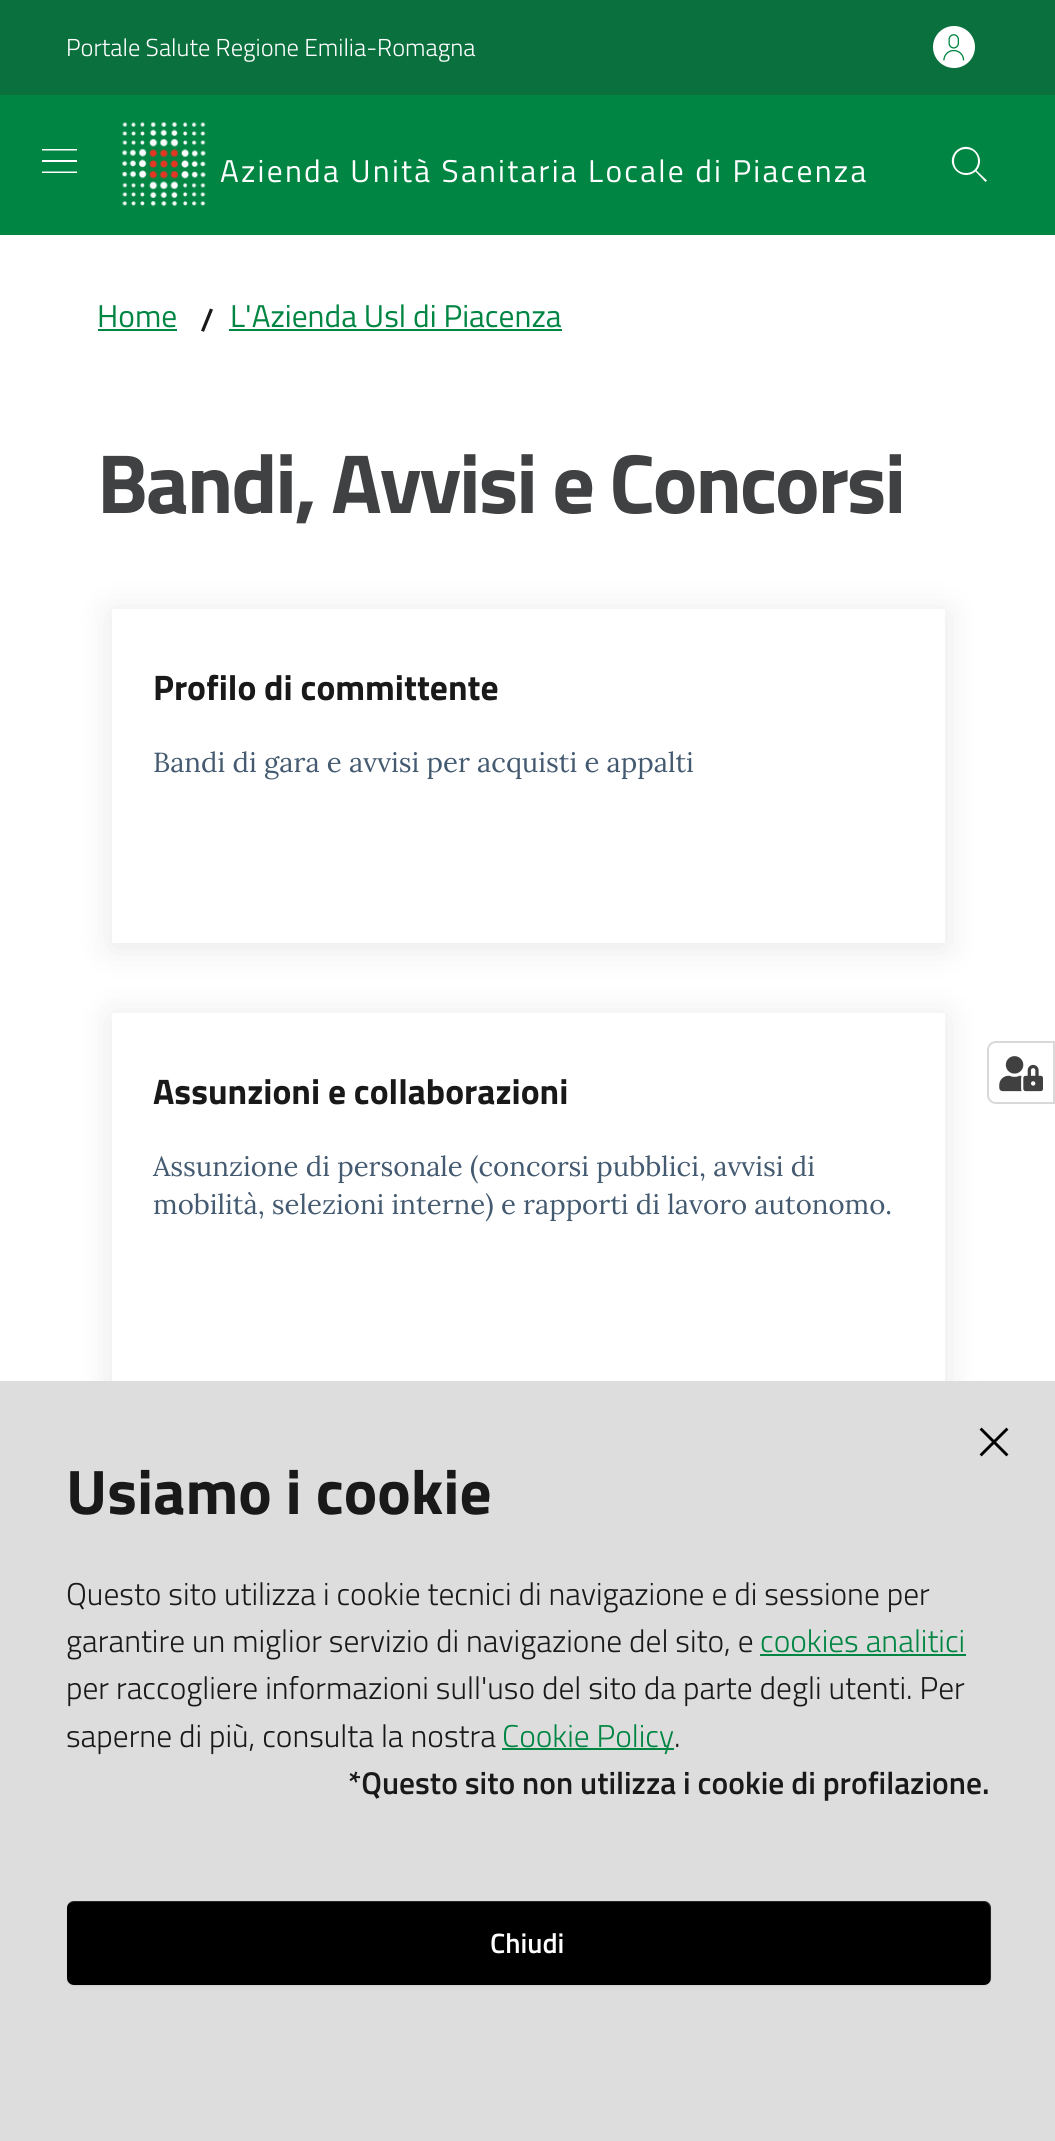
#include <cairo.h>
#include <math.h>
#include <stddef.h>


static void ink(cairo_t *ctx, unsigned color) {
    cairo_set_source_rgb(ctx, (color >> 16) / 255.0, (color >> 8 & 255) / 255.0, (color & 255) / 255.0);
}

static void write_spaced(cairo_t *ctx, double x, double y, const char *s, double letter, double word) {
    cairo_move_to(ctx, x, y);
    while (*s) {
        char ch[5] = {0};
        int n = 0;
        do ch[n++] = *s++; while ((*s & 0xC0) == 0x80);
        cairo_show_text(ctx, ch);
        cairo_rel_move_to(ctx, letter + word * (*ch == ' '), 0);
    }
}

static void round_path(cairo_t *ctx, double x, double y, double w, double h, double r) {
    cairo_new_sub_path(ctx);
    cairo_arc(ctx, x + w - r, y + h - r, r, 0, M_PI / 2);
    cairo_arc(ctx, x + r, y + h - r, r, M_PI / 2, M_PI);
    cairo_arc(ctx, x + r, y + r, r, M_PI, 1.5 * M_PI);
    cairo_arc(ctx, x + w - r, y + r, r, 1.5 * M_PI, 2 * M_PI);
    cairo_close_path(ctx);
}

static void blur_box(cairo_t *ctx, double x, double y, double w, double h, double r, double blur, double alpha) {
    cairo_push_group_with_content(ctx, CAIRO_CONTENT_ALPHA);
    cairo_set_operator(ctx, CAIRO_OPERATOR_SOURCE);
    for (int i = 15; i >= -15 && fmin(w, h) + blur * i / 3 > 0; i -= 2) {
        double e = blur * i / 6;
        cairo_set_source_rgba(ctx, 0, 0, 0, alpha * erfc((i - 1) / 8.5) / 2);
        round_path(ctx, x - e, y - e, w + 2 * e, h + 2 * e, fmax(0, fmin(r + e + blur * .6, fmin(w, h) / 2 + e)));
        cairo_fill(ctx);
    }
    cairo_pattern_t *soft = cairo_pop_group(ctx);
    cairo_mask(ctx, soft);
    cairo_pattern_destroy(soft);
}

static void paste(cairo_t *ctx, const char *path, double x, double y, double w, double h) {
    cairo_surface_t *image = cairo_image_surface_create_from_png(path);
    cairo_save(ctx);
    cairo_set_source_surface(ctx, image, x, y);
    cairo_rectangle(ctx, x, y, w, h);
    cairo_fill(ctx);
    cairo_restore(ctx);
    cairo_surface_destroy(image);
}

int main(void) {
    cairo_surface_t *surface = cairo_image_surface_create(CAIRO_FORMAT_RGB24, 1055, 2141);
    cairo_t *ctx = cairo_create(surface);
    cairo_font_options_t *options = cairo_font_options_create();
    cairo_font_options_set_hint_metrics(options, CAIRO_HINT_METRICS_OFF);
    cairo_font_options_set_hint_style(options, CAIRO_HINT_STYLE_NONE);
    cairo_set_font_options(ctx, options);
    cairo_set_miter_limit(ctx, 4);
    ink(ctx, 0xFFFFFF);
    cairo_paint(ctx);
    ink(ctx, 0x0A713E);
    cairo_rectangle(ctx, 0, 0, 1055, 95);
    cairo_fill(ctx);
    cairo_select_font_face(ctx, "Titillium Web Light", CAIRO_FONT_SLANT_NORMAL, CAIRO_FONT_WEIGHT_NORMAL);
    cairo_set_font_size(ctx, 24.5);
    ink(ctx, 0xFFFFFF);
    cairo_move_to(ctx, 66, 56);
    cairo_show_text(ctx, "Portale Salute Regione Emilia-Romagna");
    cairo_new_path(ctx);
    cairo_arc(ctx, 954, 47, 21, 0, 2 * M_PI);
    cairo_fill(ctx);
    paste(ctx, "media/1.png", 943, 34, 22, 27);
    ink(ctx, 0x008542);
    cairo_rectangle(ctx, 0, 95, 1055, 140);
    cairo_fill(ctx);
    ink(ctx, 0xFFFFFF);
    cairo_new_path(ctx);
    cairo_move_to(ctx, 77, 149);
    cairo_line_to(ctx, 77, 150.5);
    cairo_line_to(ctx, 42, 150.5);
    cairo_line_to(ctx, 42, 149);
    cairo_close_path(ctx);
    cairo_move_to(ctx, 42, 162);
    cairo_line_to(ctx, 77, 162);
    cairo_line_to(ctx, 77, 160);
    cairo_line_to(ctx, 42, 160);
    cairo_close_path(ctx);
    cairo_move_to(ctx, 42, 173);
    cairo_line_to(ctx, 77, 173);
    cairo_line_to(ctx, 77, 171.5);
    cairo_line_to(ctx, 42, 171.5);
    cairo_close_path(ctx);
    cairo_fill(ctx);
    paste(ctx, "media/2.png", 122, 122, 84, 85);
    cairo_select_font_face(ctx, "Titillium Web", CAIRO_FONT_SLANT_NORMAL, CAIRO_FONT_WEIGHT_NORMAL);
    cairo_set_font_size(ctx, 31.5);
    write_spaced(ctx, 220, 182, "Azienda Unità Sanitaria Locale di Piacenza", 2.25, 0);
    cairo_new_path(ctx);
    cairo_move_to(ctx, 987, 180.5);
    cairo_line_to(ctx, 976.5, 170.5);
    cairo_curve_to(ctx, 988, 156.5, 969, 138.5, 956, 151);
    cairo_curve_to(ctx, 943.5, 164, 961.5, 183, 975.5, 171.5);
    cairo_line_to(ctx, 985.5, 182);
    cairo_close_path(ctx);
    cairo_move_to(ctx, 966, 173);
    cairo_curve_to(ctx, 950, 173, 950, 149, 966, 149);
    cairo_curve_to(ctx, 982, 149, 982, 173, 966, 173);
    cairo_close_path(ctx);
    cairo_fill(ctx);
    ink(ctx, 0x008542);
    cairo_move_to(ctx, 97, 327);
    cairo_show_text(ctx, "Home");
    cairo_rectangle(ctx, 98, 329, 79, 2);
    cairo_fill(ctx);
    cairo_select_font_face(ctx, "Titillium Web SemiBold", CAIRO_FONT_SLANT_NORMAL, CAIRO_FONT_WEIGHT_NORMAL);
    ink(ctx, 0x191919);
    cairo_move_to(ctx, 200, 331);
    cairo_show_text(ctx, "/");
    cairo_select_font_face(ctx, "Titillium Web", CAIRO_FONT_SLANT_NORMAL, CAIRO_FONT_WEIGHT_NORMAL);
    ink(ctx, 0x008542);
    cairo_move_to(ctx, 230, 327);
    cairo_show_text(ctx, "L'Azienda Usl di Piacenza");
    cairo_rectangle(ctx, 229, 329, 333, 2);
    cairo_fill(ctx);
    cairo_select_font_face(ctx, "Titillium Web", CAIRO_FONT_SLANT_NORMAL, CAIRO_FONT_WEIGHT_BOLD);
    cairo_set_font_size(ctx, 84);
    ink(ctx, 0x3F4142);
    write_spaced(ctx, 97, 513, "Bandi, Avvisi e Concorsi", -2.1, 0);
    cairo_save(ctx);
    cairo_set_fill_rule(ctx, CAIRO_FILL_RULE_EVEN_ODD);
    cairo_new_path(ctx);
    cairo_move_to(ctx, 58, 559);
    cairo_line_to(ctx, 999, 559);
    cairo_line_to(ctx, 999, 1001);
    cairo_line_to(ctx, 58, 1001);
    cairo_close_path(ctx);
    cairo_move_to(ctx, 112, 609);
    cairo_line_to(ctx, 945, 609);
    cairo_line_to(ctx, 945, 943);
    cairo_line_to(ctx, 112, 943);
    cairo_close_path(ctx);
    cairo_clip(ctx);
    ink(ctx, 0x000000);
    blur_box(ctx, 112, 613, 833, 334, 0, 17.5, 0.1);
    cairo_restore(ctx);
    cairo_set_font_size(ctx, 35.5);
    ink(ctx, 0x191919);
    cairo_move_to(ctx, 153, 700);
    cairo_show_text(ctx, "Profilo di committente");
    cairo_select_font_face(ctx, "Lora", CAIRO_FONT_SLANT_NORMAL, CAIRO_FONT_WEIGHT_NORMAL);
    cairo_set_font_size(ctx, 27.55);
    ink(ctx, 0x435A70);
    cairo_move_to(ctx, 153, 772);
    cairo_show_text(ctx, "Bandi di gara e avvisi per acquisti e appalti");
    ink(ctx, 0x000000);
    blur_box(ctx, 112, 1017, 833, 371, 0, 17.5, 0.1);
    ink(ctx, 0xFFFFFF);
    cairo_rectangle(ctx, 112, 1013, 833, 368);
    cairo_fill(ctx);
    cairo_select_font_face(ctx, "Titillium Web", CAIRO_FONT_SLANT_NORMAL, CAIRO_FONT_WEIGHT_BOLD);
    cairo_set_font_size(ctx, 35.5);
    ink(ctx, 0x191919);
    cairo_move_to(ctx, 153, 1104);
    cairo_show_text(ctx, "Assunzioni e collaborazioni");
    cairo_select_font_face(ctx, "Lora", CAIRO_FONT_SLANT_NORMAL, CAIRO_FONT_WEIGHT_NORMAL);
    cairo_set_font_size(ctx, 27.55);
    ink(ctx, 0x435A70);
    cairo_move_to(ctx, 153, 1176);
    cairo_show_text(ctx, "Assunzione di personale (concorsi pubblici, avvisi di");
    cairo_move_to(ctx, 153, 1214);
    cairo_show_text(ctx, "mobilità, selezioni interne) e rapporti di lavoro autonomo.");
    cairo_new_path(ctx);
    cairo_move_to(ctx, 996, 1042);
    cairo_line_to(ctx, 1054, 1042);
    cairo_line_to(ctx, 1054, 1103);
    cairo_line_to(ctx, 996, 1103);
    cairo_curve_to(ctx, 991.5, 1103, 988, 1099.5, 988, 1095);
    cairo_line_to(ctx, 988, 1050);
    cairo_curve_to(ctx, 988, 1045.5, 991.5, 1042, 996, 1042);
    cairo_close_path(ctx);
    ink(ctx, 0xD9D9D9);
    cairo_stroke(ctx);
    paste(ctx, "media/3.png", 999, 1056, 44, 36);
    ink(ctx, 0xDDDDDD);
    cairo_rectangle(ctx, 0, 1381, 1055, 760);
    cairo_fill(ctx);
    paste(ctx, "media/4.png", 979, 1427, 30, 30);
    cairo_select_font_face(ctx, "Titillium Web", CAIRO_FONT_SLANT_NORMAL, CAIRO_FONT_WEIGHT_BOLD);
    cairo_set_font_size(ctx, 63);
    ink(ctx, 0x191919);
    cairo_move_to(ctx, 66, 1514);
    cairo_show_text(ctx, "Usiamo i cookie");
    cairo_select_font_face(ctx, "Titillium Web Light", CAIRO_FONT_SLANT_NORMAL, CAIRO_FONT_WEIGHT_NORMAL);
    cairo_set_font_size(ctx, 31.5);
    cairo_move_to(ctx, 66, 1605);
    cairo_show_text(ctx, "Questo sito utilizza i cookie tecnici di navigazione e di sessione per");
    cairo_move_to(ctx, 66, 1652);
    cairo_show_text(ctx, "garantire un miglior servizio di navigazione del sito, e");
    ink(ctx, 0x008542);
    cairo_move_to(ctx, 760, 1652);
    cairo_show_text(ctx, "cookies analitici");
    cairo_rectangle(ctx, 760, 1654, 206, 2);
    cairo_fill(ctx);
    ink(ctx, 0x191919);
    cairo_move_to(ctx, 66, 1699);
    cairo_show_text(ctx, "per raccogliere informazioni sull'uso del sito da parte degli utenti. Per");
    cairo_move_to(ctx, 66, 1747);
    cairo_show_text(ctx, "saperne di più, consulta la nostra");
    ink(ctx, 0x008542);
    cairo_rectangle(ctx, 502, 1748, 172, 2);
    cairo_fill(ctx);
    cairo_move_to(ctx, 502, 1747);
    cairo_show_text(ctx, "Cookie Policy");
    ink(ctx, 0x191919);
    cairo_move_to(ctx, 674, 1747);
    cairo_show_text(ctx, ".");
    cairo_select_font_face(ctx, "Titillium Web SemiBold", CAIRO_FONT_SLANT_NORMAL, CAIRO_FONT_WEIGHT_NORMAL);
    cairo_move_to(ctx, 348, 1794);
    cairo_show_text(ctx, "*Questo sito non utilizza i cookie di profilazione.");
    ink(ctx, 0x000000);
    blur_box(ctx, 67, 1902, 924, 84, 7, 1, 0.07);
    ink(ctx, 0x000000);
    round_path(ctx, 67, 1901, 924, 84, 7);
    cairo_fill(ctx);
    cairo_set_source_rgba(ctx, 1, 1, 1, 0.15);
    cairo_new_path(ctx);
    cairo_move_to(ctx, 74, 1902);
    cairo_line_to(ctx, 984, 1902);
    cairo_curve_to(ctx, 987, 1902, 990, 1905, 990, 1909);
    cairo_line_to(ctx, 990, 1979);
    cairo_curve_to(ctx, 990, 1981, 990, 1982, 989, 1983);
    cairo_curve_to(ctx, 990, 1982, 991, 1980, 991, 1978);
    cairo_line_to(ctx, 991, 1908);
    cairo_curve_to(ctx, 991, 1904, 988, 1901, 984, 1901);
    cairo_line_to(ctx, 74, 1901);
    cairo_curve_to(ctx, 71, 1901, 69, 1902, 68, 1905);
    cairo_curve_to(ctx, 69, 1903, 72, 1902, 74, 1902);
    cairo_close_path(ctx);
    cairo_fill(ctx);
    cairo_set_font_size(ctx, 28);
    ink(ctx, 0xFFFFFF);
    cairo_move_to(ctx, 490, 1953);
    cairo_show_text(ctx, "Chiudi");
    cairo_surface_write_to_png(surface, "image.png");
    cairo_font_options_destroy(options);
    cairo_destroy(ctx);
    cairo_surface_destroy(surface);
    return 0;
}
